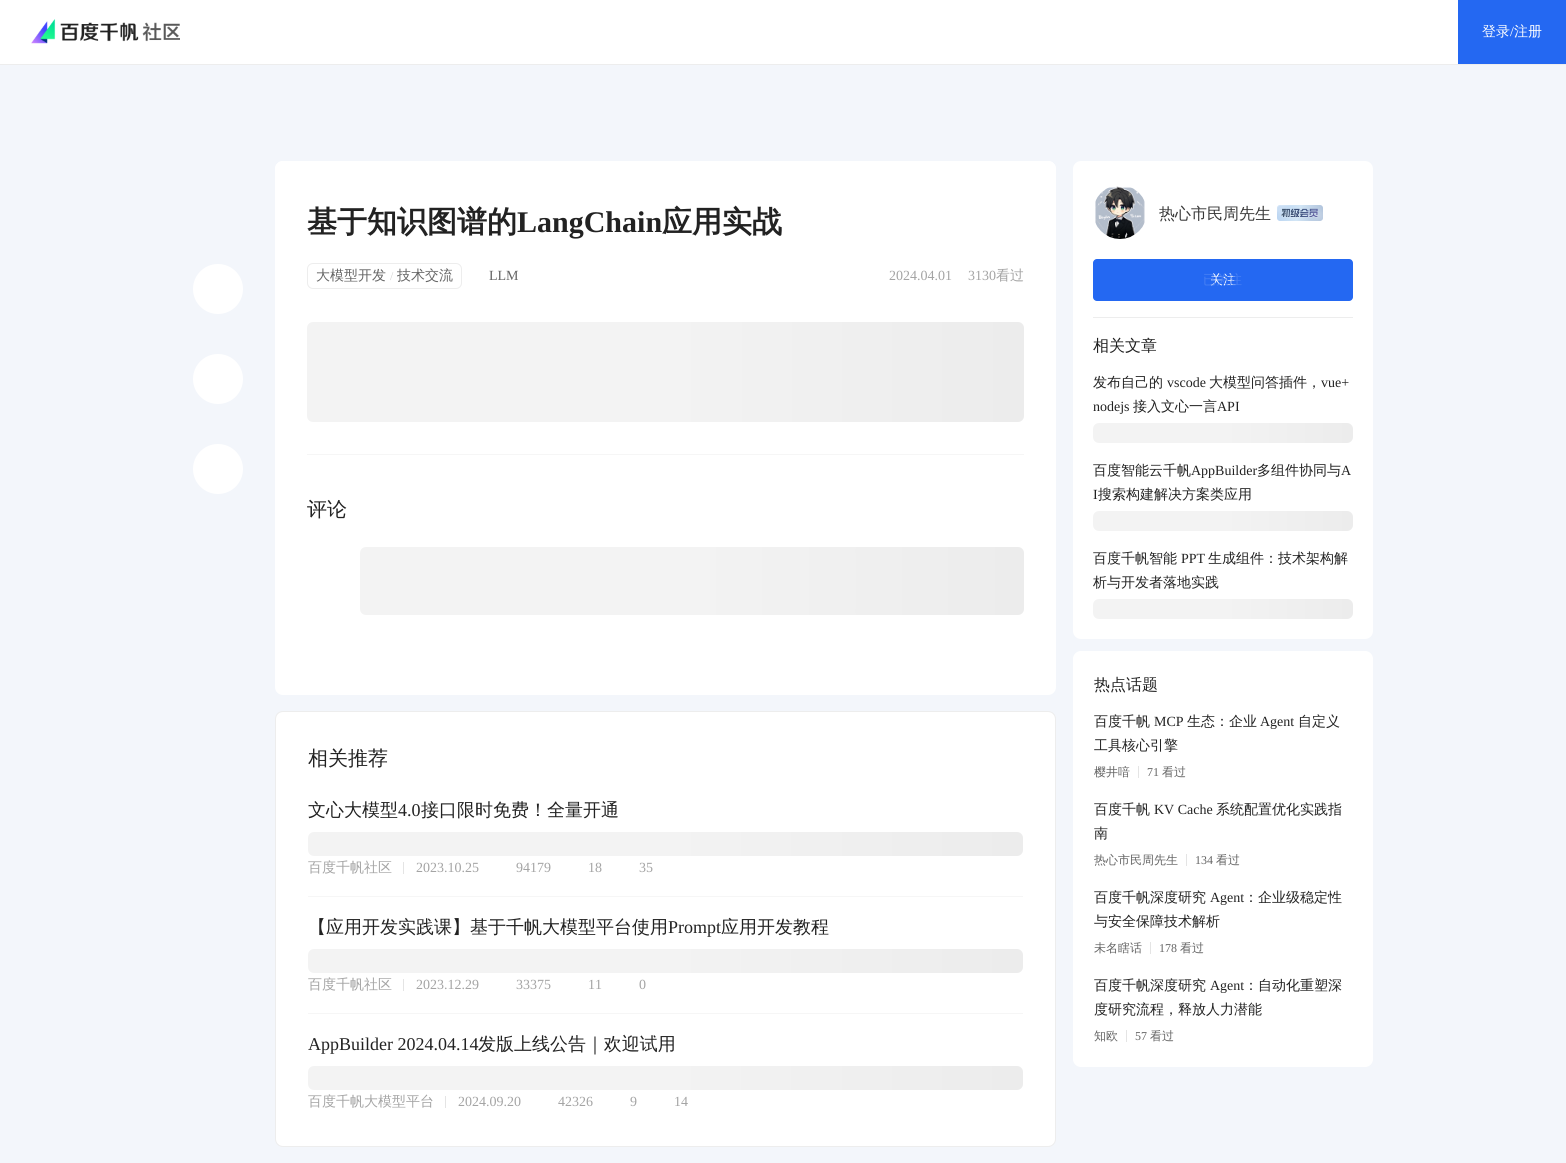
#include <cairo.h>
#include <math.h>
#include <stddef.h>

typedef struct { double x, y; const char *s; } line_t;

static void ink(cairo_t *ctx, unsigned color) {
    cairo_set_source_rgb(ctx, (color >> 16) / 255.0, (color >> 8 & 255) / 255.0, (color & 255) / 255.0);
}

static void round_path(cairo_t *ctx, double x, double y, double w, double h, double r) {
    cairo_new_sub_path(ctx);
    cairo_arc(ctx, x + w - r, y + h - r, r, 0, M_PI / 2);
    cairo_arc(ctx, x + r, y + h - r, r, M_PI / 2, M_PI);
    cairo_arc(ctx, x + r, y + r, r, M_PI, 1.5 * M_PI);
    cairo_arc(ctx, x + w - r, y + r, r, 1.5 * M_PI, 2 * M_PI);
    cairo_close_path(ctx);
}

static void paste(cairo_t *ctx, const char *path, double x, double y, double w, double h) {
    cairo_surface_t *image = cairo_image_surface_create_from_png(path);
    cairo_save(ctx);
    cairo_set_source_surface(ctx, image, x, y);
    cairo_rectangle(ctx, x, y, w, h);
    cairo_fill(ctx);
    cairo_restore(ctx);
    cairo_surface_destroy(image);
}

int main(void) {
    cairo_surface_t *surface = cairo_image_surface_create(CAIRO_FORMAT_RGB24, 1566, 1163);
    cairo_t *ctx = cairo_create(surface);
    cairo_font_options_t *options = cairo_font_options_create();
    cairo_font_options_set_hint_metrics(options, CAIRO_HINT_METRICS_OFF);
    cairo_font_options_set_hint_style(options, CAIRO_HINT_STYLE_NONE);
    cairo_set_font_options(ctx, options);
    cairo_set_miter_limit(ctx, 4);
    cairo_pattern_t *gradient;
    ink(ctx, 0xFFFFFF);
    cairo_paint(ctx);
    ink(ctx, 0xEDEDED);
    cairo_rectangle(ctx, 0, 64, 1566, 1);
    cairo_fill(ctx);
    paste(ctx, "media/1.png", 31, 19, 149, 25);
    ink(ctx, 0x2468F2);
    cairo_rectangle(ctx, 1458, 0, 108, 64);
    cairo_fill(ctx);
    cairo_select_font_face(ctx, "WenQuanYi Zen Hei Medium", CAIRO_FONT_SLANT_NORMAL, CAIRO_FONT_WEIGHT_NORMAL);
    cairo_set_font_size(ctx, 14);
    ink(ctx, 0xFFFFFF);
    cairo_move_to(ctx, 1482, 36);
    cairo_show_text(ctx, "登录");
    cairo_select_font_face(ctx, "Liberation Serif", CAIRO_FONT_SLANT_NORMAL, CAIRO_FONT_WEIGHT_NORMAL);
    cairo_move_to(ctx, 1510, 36);
    cairo_show_text(ctx, "/");
    cairo_select_font_face(ctx, "WenQuanYi Zen Hei Medium", CAIRO_FONT_SLANT_NORMAL, CAIRO_FONT_WEIGHT_NORMAL);
    cairo_move_to(ctx, 1514, 36);
    cairo_show_text(ctx, "注册");
    ink(ctx, 0xF3F6FB);
    cairo_rectangle(ctx, 0, 65, 1566, 1098);
    cairo_fill(ctx);
    ink(ctx, 0xFFFFFF);
    cairo_arc(ctx, 218, 289, 25, 0, 2 * M_PI);
    cairo_fill(ctx);
    cairo_arc(ctx, 218, 379, 25, 0, 2 * M_PI);
    cairo_fill(ctx);
    cairo_arc(ctx, 218, 469, 25, 0, 2 * M_PI);
    cairo_fill(ctx);
    cairo_new_path(ctx);
    cairo_move_to(ctx, 283, 161);
    cairo_line_to(ctx, 1048, 161);
    cairo_curve_to(ctx, 1052.5, 161, 1056, 164.5, 1056, 169);
    cairo_line_to(ctx, 1056, 454);
    cairo_line_to(ctx, 275, 454);
    cairo_line_to(ctx, 275, 169);
    cairo_curve_to(ctx, 275, 164.5, 278.5, 161, 283, 161);
    cairo_close_path(ctx);
    cairo_fill(ctx);
    round_path(ctx, 275, 161, 781, 102, 8);
    cairo_fill(ctx);
    cairo_select_font_face(ctx, "WenQuanYi Zen Hei", CAIRO_FONT_SLANT_NORMAL, CAIRO_FONT_WEIGHT_BOLD);
    cairo_set_font_size(ctx, 30);
    ink(ctx, 0x222222);
    cairo_move_to(ctx, 307, 232);
    cairo_show_text(ctx, "基于知识图谱的");
    cairo_select_font_face(ctx, "Liberation Serif", CAIRO_FONT_SLANT_NORMAL, CAIRO_FONT_WEIGHT_BOLD);
    cairo_move_to(ctx, 517, 232);
    cairo_show_text(ctx, "LangChain");
    cairo_select_font_face(ctx, "WenQuanYi Zen Hei", CAIRO_FONT_SLANT_NORMAL, CAIRO_FONT_WEIGHT_BOLD);
    cairo_move_to(ctx, 662, 232);
    cairo_show_text(ctx, "应用实战");
    round_path(ctx, 307.5, 263.5, 154, 25, 5.5);
    ink(ctx, 0xEDEDED);
    cairo_set_line_width(ctx, 1);
    cairo_stroke(ctx);
    cairo_select_font_face(ctx, "WenQuanYi Zen Hei Medium", CAIRO_FONT_SLANT_NORMAL, CAIRO_FONT_WEIGHT_NORMAL);
    cairo_set_font_size(ctx, 14);
    ink(ctx, 0x646464);
    cairo_move_to(ctx, 316, 280);
    cairo_show_text(ctx, "大模型开发");
    cairo_select_font_face(ctx, "Liberation Serif", CAIRO_FONT_SLANT_NORMAL, CAIRO_FONT_WEIGHT_NORMAL);
    cairo_set_font_size(ctx, 12);
    ink(ctx, 0xD3D3D3);
    cairo_move_to(ctx, 390, 280);
    cairo_show_text(ctx, "/");
    cairo_select_font_face(ctx, "WenQuanYi Zen Hei Medium", CAIRO_FONT_SLANT_NORMAL, CAIRO_FONT_WEIGHT_NORMAL);
    cairo_set_font_size(ctx, 14);
    ink(ctx, 0x646464);
    cairo_move_to(ctx, 397, 280);
    cairo_show_text(ctx, "技术交流");
    cairo_select_font_face(ctx, "Liberation Serif", CAIRO_FONT_SLANT_NORMAL, CAIRO_FONT_WEIGHT_NORMAL);
    cairo_move_to(ctx, 489, 280);
    cairo_show_text(ctx, "LLM");
    ink(ctx, 0xA4A4A4);
    cairo_move_to(ctx, 889, 280);
    cairo_show_text(ctx, "2024.04.01");
    cairo_move_to(ctx, 968, 280);
    cairo_show_text(ctx, "3130");
    cairo_select_font_face(ctx, "WenQuanYi Zen Hei Medium", CAIRO_FONT_SLANT_NORMAL, CAIRO_FONT_WEIGHT_NORMAL);
    cairo_move_to(ctx, 996, 280);
    cairo_show_text(ctx, "看过");
    gradient = cairo_pattern_create_linear(307, 372, 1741, 372);
    cairo_pattern_add_color_stop_rgba(gradient, 0.25, 0.953, 0.953, 0.953, 1);
    cairo_pattern_add_color_stop_rgba(gradient, 0.5, 0.925, 0.925, 0.925, 1);
    cairo_pattern_add_color_stop_rgba(gradient, 0.75, 0.953, 0.953, 0.953, 1);
    cairo_set_source(ctx, gradient);
    cairo_pattern_destroy(gradient);
    round_path(ctx, 307, 322, 717, 100, 6);
    cairo_fill(ctx);
    ink(ctx, 0xFFFFFF);
    cairo_new_path(ctx);
    cairo_move_to(ctx, 275, 454);
    cairo_line_to(ctx, 1056, 454);
    cairo_line_to(ctx, 1056, 687);
    cairo_curve_to(ctx, 1056, 691.5, 1052.5, 695, 1048, 695);
    cairo_line_to(ctx, 283, 695);
    cairo_curve_to(ctx, 278.5, 695, 275, 691.5, 275, 687);
    cairo_close_path(ctx);
    cairo_fill(ctx);
    ink(ctx, 0xF6F6F6);
    cairo_rectangle(ctx, 307, 454, 717, 1);
    cairo_fill(ctx);
    cairo_set_font_size(ctx, 20);
    ink(ctx, 0x222222);
    cairo_move_to(ctx, 307, 516);
    cairo_show_text(ctx, "评论");
    gradient = cairo_pattern_create_linear(360, 581, 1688, 581);
    cairo_pattern_add_color_stop_rgba(gradient, 0.25, 0.953, 0.953, 0.953, 1);
    cairo_pattern_add_color_stop_rgba(gradient, 0.5, 0.925, 0.925, 0.925, 1);
    cairo_pattern_add_color_stop_rgba(gradient, 0.75, 0.953, 0.953, 0.953, 1);
    cairo_set_source(ctx, gradient);
    cairo_pattern_destroy(gradient);
    round_path(ctx, 360, 547, 664, 68, 6);
    cairo_fill(ctx);
    ink(ctx, 0xFFFFFF);
    round_path(ctx, 275, 711, 781, 436, 8);
    cairo_fill(ctx);
    round_path(ctx, 275.5, 711.5, 780, 435, 7.5);
    cairo_set_source_rgba(ctx, 0.133, 0.133, 0.133, 0.08);
    cairo_stroke(ctx);
    ink(ctx, 0x222222);
    cairo_move_to(ctx, 308, 765);
    cairo_show_text(ctx, "相关推荐");
    ink(ctx, 0xF6F6F6);
    cairo_rectangle(ctx, 308, 896, 715, 1);
    cairo_fill(ctx);
    cairo_set_font_size(ctx, 18);
    ink(ctx, 0x222222);
    cairo_move_to(ctx, 308, 816);
    cairo_show_text(ctx, "文心大模型");
    cairo_select_font_face(ctx, "Liberation Serif", CAIRO_FONT_SLANT_NORMAL, CAIRO_FONT_WEIGHT_NORMAL);
    cairo_move_to(ctx, 398, 816);
    cairo_show_text(ctx, "4.0");
    cairo_select_font_face(ctx, "WenQuanYi Zen Hei Medium", CAIRO_FONT_SLANT_NORMAL, CAIRO_FONT_WEIGHT_NORMAL);
    cairo_move_to(ctx, 421, 816);
    cairo_show_text(ctx, "接口限时免费！全量开通");
    gradient = cairo_pattern_create_linear(308, 844, 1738, 844);
    cairo_pattern_add_color_stop_rgba(gradient, 0.25, 0.953, 0.953, 0.953, 1);
    cairo_pattern_add_color_stop_rgba(gradient, 0.5, 0.925, 0.925, 0.925, 1);
    cairo_pattern_add_color_stop_rgba(gradient, 0.75, 0.953, 0.953, 0.953, 1);
    cairo_set_source(ctx, gradient);
    cairo_pattern_destroy(gradient);
    round_path(ctx, 308, 832, 715, 24, 6);
    cairo_fill(ctx);
    cairo_set_font_size(ctx, 14);
    ink(ctx, 0xA4A4A4);
    cairo_move_to(ctx, 308, 872);
    cairo_show_text(ctx, "百度千帆社区");
    ink(ctx, 0xE4E4E4);
    cairo_rectangle(ctx, 403, 862, 1, 12);
    cairo_fill(ctx);
    cairo_select_font_face(ctx, "Liberation Serif", CAIRO_FONT_SLANT_NORMAL, CAIRO_FONT_WEIGHT_NORMAL);
    ink(ctx, 0xA4A4A4);
    {
        static const line_t items[] = {
            {416, 872, "2023.10.25"},
            {516, 872, "94179"},
            {588, 872, "18"},
            {639, 872, "35"},
        };
        for (size_t i = 0; i < sizeof items / sizeof *items; i++) {
            cairo_move_to(ctx, items[i].x, items[i].y);
            cairo_show_text(ctx, items[i].s);
        }
    }
    ink(ctx, 0xF6F6F6);
    cairo_rectangle(ctx, 308, 1013, 715, 1);
    cairo_fill(ctx);
    cairo_select_font_face(ctx, "WenQuanYi Zen Hei Medium", CAIRO_FONT_SLANT_NORMAL, CAIRO_FONT_WEIGHT_NORMAL);
    cairo_set_font_size(ctx, 18);
    ink(ctx, 0x222222);
    cairo_move_to(ctx, 308, 933);
    cairo_show_text(ctx, "【应用开发实践课】基于千帆大模型平台使用");
    cairo_select_font_face(ctx, "Liberation Serif", CAIRO_FONT_SLANT_NORMAL, CAIRO_FONT_WEIGHT_NORMAL);
    cairo_move_to(ctx, 668, 933);
    cairo_show_text(ctx, "Prompt");
    cairo_select_font_face(ctx, "WenQuanYi Zen Hei Medium", CAIRO_FONT_SLANT_NORMAL, CAIRO_FONT_WEIGHT_NORMAL);
    cairo_move_to(ctx, 721, 933);
    cairo_show_text(ctx, "应用开发教程");
    gradient = cairo_pattern_create_linear(308, 961, 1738, 961);
    cairo_pattern_add_color_stop_rgba(gradient, 0.25, 0.953, 0.953, 0.953, 1);
    cairo_pattern_add_color_stop_rgba(gradient, 0.5, 0.925, 0.925, 0.925, 1);
    cairo_pattern_add_color_stop_rgba(gradient, 0.75, 0.953, 0.953, 0.953, 1);
    cairo_set_source(ctx, gradient);
    cairo_pattern_destroy(gradient);
    round_path(ctx, 308, 949, 715, 24, 6);
    cairo_fill(ctx);
    cairo_set_font_size(ctx, 14);
    ink(ctx, 0xA4A4A4);
    cairo_move_to(ctx, 308, 989);
    cairo_show_text(ctx, "百度千帆社区");
    ink(ctx, 0xE4E4E4);
    cairo_rectangle(ctx, 403, 979, 1, 12);
    cairo_fill(ctx);
    cairo_select_font_face(ctx, "Liberation Serif", CAIRO_FONT_SLANT_NORMAL, CAIRO_FONT_WEIGHT_NORMAL);
    ink(ctx, 0xA4A4A4);
    {
        static const line_t items[] = {
            {416, 989, "2023.12.29"},
            {516, 989, "33375"},
            {588, 989, "11"},
            {639, 989, "0"},
        };
        for (size_t i = 0; i < sizeof items / sizeof *items; i++) {
            cairo_move_to(ctx, items[i].x, items[i].y);
            cairo_show_text(ctx, items[i].s);
        }
    }
    cairo_set_font_size(ctx, 18);
    ink(ctx, 0x222222);
    cairo_move_to(ctx, 308, 1050);
    cairo_show_text(ctx, "AppBuilder 2024.04.14");
    cairo_select_font_face(ctx, "WenQuanYi Zen Hei Medium", CAIRO_FONT_SLANT_NORMAL, CAIRO_FONT_WEIGHT_NORMAL);
    cairo_move_to(ctx, 478, 1050);
    cairo_show_text(ctx, "发版上线公告｜欢迎试用");
    gradient = cairo_pattern_create_linear(308, 1078, 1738, 1078);
    cairo_pattern_add_color_stop_rgba(gradient, 0.25, 0.953, 0.953, 0.953, 1);
    cairo_pattern_add_color_stop_rgba(gradient, 0.5, 0.925, 0.925, 0.925, 1);
    cairo_pattern_add_color_stop_rgba(gradient, 0.75, 0.953, 0.953, 0.953, 1);
    cairo_set_source(ctx, gradient);
    cairo_pattern_destroy(gradient);
    round_path(ctx, 308, 1066, 715, 24, 6);
    cairo_fill(ctx);
    cairo_set_font_size(ctx, 14);
    ink(ctx, 0xA4A4A4);
    cairo_move_to(ctx, 308, 1106);
    cairo_show_text(ctx, "百度千帆大模型平台");
    ink(ctx, 0xE4E4E4);
    cairo_rectangle(ctx, 445, 1096, 1, 12);
    cairo_fill(ctx);
    cairo_select_font_face(ctx, "Liberation Serif", CAIRO_FONT_SLANT_NORMAL, CAIRO_FONT_WEIGHT_NORMAL);
    ink(ctx, 0xA4A4A4);
    {
        static const line_t items[] = {
            {458, 1106, "2024.09.20"},
            {558, 1106, "42326"},
            {630, 1106, "9"},
            {674, 1106, "14"},
        };
        for (size_t i = 0; i < sizeof items / sizeof *items; i++) {
            cairo_move_to(ctx, items[i].x, items[i].y);
            cairo_show_text(ctx, items[i].s);
        }
    }
    ink(ctx, 0xFFFFFF);
    round_path(ctx, 1073, 161, 300, 478, 8);
    cairo_fill(ctx);
    paste(ctx, "media/2.png", 1095, 186, 50, 53);
    cairo_select_font_face(ctx, "WenQuanYi Zen Hei Medium", CAIRO_FONT_SLANT_NORMAL, CAIRO_FONT_WEIGHT_NORMAL);
    cairo_set_font_size(ctx, 16);
    ink(ctx, 0x383838);
    cairo_move_to(ctx, 1159, 219);
    cairo_show_text(ctx, "热心市民周先生");
    paste(ctx, "media/3.png", 1277, 205, 46, 16);
    ink(ctx, 0x2468F2);
    round_path(ctx, 1093, 259, 260, 42, 4);
    cairo_fill(ctx);
    cairo_set_font_size(ctx, 13);
    ink(ctx, 0xFFFFFF);
    cairo_move_to(ctx, 1210, 284);
    cairo_show_text(ctx, "关注");
    ink(ctx, 0x4780F4);
    cairo_move_to(ctx, 1203, 284);
    cairo_show_text(ctx, "已关注");
    ink(ctx, 0xEDEDED);
    cairo_rectangle(ctx, 1093, 317, 260, 1);
    cairo_fill(ctx);
    cairo_set_font_size(ctx, 16);
    ink(ctx, 0x222222);
    cairo_move_to(ctx, 1093, 351);
    cairo_show_text(ctx, "相关文章");
    cairo_set_font_size(ctx, 14);
    cairo_move_to(ctx, 1093, 387);
    cairo_show_text(ctx, "发布自己的");
    cairo_select_font_face(ctx, "Liberation Serif", CAIRO_FONT_SLANT_NORMAL, CAIRO_FONT_WEIGHT_NORMAL);
    cairo_move_to(ctx, 1167, 387);
    cairo_show_text(ctx, "vscode");
    cairo_select_font_face(ctx, "WenQuanYi Zen Hei Medium", CAIRO_FONT_SLANT_NORMAL, CAIRO_FONT_WEIGHT_NORMAL);
    cairo_move_to(ctx, 1209, 387);
    cairo_show_text(ctx, "大模型问答插件，");
    cairo_select_font_face(ctx, "Liberation Serif", CAIRO_FONT_SLANT_NORMAL, CAIRO_FONT_WEIGHT_NORMAL);
    cairo_move_to(ctx, 1321, 387);
    cairo_show_text(ctx, "vue+");
    cairo_move_to(ctx, 1093, 411);
    cairo_show_text(ctx, "nodejs");
    cairo_select_font_face(ctx, "WenQuanYi Zen Hei Medium", CAIRO_FONT_SLANT_NORMAL, CAIRO_FONT_WEIGHT_NORMAL);
    cairo_move_to(ctx, 1133, 411);
    cairo_show_text(ctx, "接入文心一言");
    cairo_select_font_face(ctx, "Liberation Serif", CAIRO_FONT_SLANT_NORMAL, CAIRO_FONT_WEIGHT_NORMAL);
    cairo_move_to(ctx, 1217, 411);
    cairo_show_text(ctx, "API");
    gradient = cairo_pattern_create_linear(1093, 433, 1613, 433);
    cairo_pattern_add_color_stop_rgba(gradient, 0.25, 0.953, 0.953, 0.953, 1);
    cairo_pattern_add_color_stop_rgba(gradient, 0.5, 0.925, 0.925, 0.925, 1);
    cairo_pattern_add_color_stop_rgba(gradient, 0.75, 0.953, 0.953, 0.953, 1);
    cairo_set_source(ctx, gradient);
    cairo_pattern_destroy(gradient);
    round_path(ctx, 1093, 423, 260, 20, 6);
    cairo_fill(ctx);
    cairo_select_font_face(ctx, "WenQuanYi Zen Hei Medium", CAIRO_FONT_SLANT_NORMAL, CAIRO_FONT_WEIGHT_NORMAL);
    ink(ctx, 0x222222);
    cairo_move_to(ctx, 1093, 475);
    cairo_show_text(ctx, "百度智能云千帆");
    cairo_select_font_face(ctx, "Liberation Serif", CAIRO_FONT_SLANT_NORMAL, CAIRO_FONT_WEIGHT_NORMAL);
    cairo_move_to(ctx, 1191, 475);
    cairo_show_text(ctx, "AppBuilder");
    cairo_select_font_face(ctx, "WenQuanYi Zen Hei Medium", CAIRO_FONT_SLANT_NORMAL, CAIRO_FONT_WEIGHT_NORMAL);
    cairo_move_to(ctx, 1257, 475);
    cairo_show_text(ctx, "多组件协同与");
    cairo_select_font_face(ctx, "Liberation Serif", CAIRO_FONT_SLANT_NORMAL, CAIRO_FONT_WEIGHT_NORMAL);
    cairo_move_to(ctx, 1341, 475);
    cairo_show_text(ctx, "A");
    cairo_move_to(ctx, 1093, 499);
    cairo_show_text(ctx, "I");
    cairo_select_font_face(ctx, "WenQuanYi Zen Hei Medium", CAIRO_FONT_SLANT_NORMAL, CAIRO_FONT_WEIGHT_NORMAL);
    cairo_move_to(ctx, 1098, 499);
    cairo_show_text(ctx, "搜索构建解决方案类应用");
    gradient = cairo_pattern_create_linear(1093, 521, 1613, 521);
    cairo_pattern_add_color_stop_rgba(gradient, 0.25, 0.953, 0.953, 0.953, 1);
    cairo_pattern_add_color_stop_rgba(gradient, 0.5, 0.925, 0.925, 0.925, 1);
    cairo_pattern_add_color_stop_rgba(gradient, 0.75, 0.953, 0.953, 0.953, 1);
    cairo_set_source(ctx, gradient);
    cairo_pattern_destroy(gradient);
    round_path(ctx, 1093, 511, 260, 20, 6);
    cairo_fill(ctx);
    ink(ctx, 0x222222);
    cairo_move_to(ctx, 1093, 563);
    cairo_show_text(ctx, "百度千帆智能");
    cairo_select_font_face(ctx, "Liberation Serif", CAIRO_FONT_SLANT_NORMAL, CAIRO_FONT_WEIGHT_NORMAL);
    cairo_move_to(ctx, 1181, 563);
    cairo_show_text(ctx, "PPT");
    cairo_select_font_face(ctx, "WenQuanYi Zen Hei Medium", CAIRO_FONT_SLANT_NORMAL, CAIRO_FONT_WEIGHT_NORMAL);
    cairo_move_to(ctx, 1208, 563);
    cairo_show_text(ctx, "生成组件：技术架构解");
    cairo_move_to(ctx, 1093, 587);
    cairo_show_text(ctx, "析与开发者落地实践");
    gradient = cairo_pattern_create_linear(1093, 609, 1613, 609);
    cairo_pattern_add_color_stop_rgba(gradient, 0.25, 0.953, 0.953, 0.953, 1);
    cairo_pattern_add_color_stop_rgba(gradient, 0.5, 0.925, 0.925, 0.925, 1);
    cairo_pattern_add_color_stop_rgba(gradient, 0.75, 0.953, 0.953, 0.953, 1);
    cairo_set_source(ctx, gradient);
    cairo_pattern_destroy(gradient);
    round_path(ctx, 1093, 599, 260, 20, 6);
    cairo_fill(ctx);
    ink(ctx, 0xFFFFFF);
    round_path(ctx, 1073.5, 651.5, 299, 415, 7.5);
    cairo_fill_preserve(ctx);
    cairo_stroke(ctx);
    cairo_set_font_size(ctx, 16);
    ink(ctx, 0x222222);
    cairo_move_to(ctx, 1094, 690);
    cairo_show_text(ctx, "热点话题");
    cairo_set_font_size(ctx, 14);
    cairo_move_to(ctx, 1094, 726);
    cairo_show_text(ctx, "百度千帆");
    cairo_select_font_face(ctx, "Liberation Serif", CAIRO_FONT_SLANT_NORMAL, CAIRO_FONT_WEIGHT_NORMAL);
    cairo_move_to(ctx, 1154, 726);
    cairo_show_text(ctx, "MCP");
    cairo_select_font_face(ctx, "WenQuanYi Zen Hei Medium", CAIRO_FONT_SLANT_NORMAL, CAIRO_FONT_WEIGHT_NORMAL);
    cairo_move_to(ctx, 1187, 726);
    cairo_show_text(ctx, "生态：企业");
    cairo_select_font_face(ctx, "Liberation Serif", CAIRO_FONT_SLANT_NORMAL, CAIRO_FONT_WEIGHT_NORMAL);
    cairo_move_to(ctx, 1260, 726);
    cairo_show_text(ctx, "Agent");
    cairo_select_font_face(ctx, "WenQuanYi Zen Hei Medium", CAIRO_FONT_SLANT_NORMAL, CAIRO_FONT_WEIGHT_NORMAL);
    cairo_move_to(ctx, 1298, 726);
    cairo_show_text(ctx, "自定义");
    cairo_move_to(ctx, 1094, 750);
    cairo_show_text(ctx, "工具核心引擎");
    cairo_set_font_size(ctx, 12);
    ink(ctx, 0x646464);
    cairo_move_to(ctx, 1094, 776);
    cairo_show_text(ctx, "樱井喑");
    ink(ctx, 0xE4E4E4);
    cairo_rectangle(ctx, 1138, 766, 1, 12);
    cairo_fill(ctx);
    cairo_select_font_face(ctx, "Liberation Serif", CAIRO_FONT_SLANT_NORMAL, CAIRO_FONT_WEIGHT_NORMAL);
    ink(ctx, 0x646464);
    cairo_move_to(ctx, 1147, 776);
    cairo_show_text(ctx, "71");
    cairo_select_font_face(ctx, "WenQuanYi Zen Hei Medium", CAIRO_FONT_SLANT_NORMAL, CAIRO_FONT_WEIGHT_NORMAL);
    cairo_move_to(ctx, 1162, 776);
    cairo_show_text(ctx, "看过");
    cairo_set_font_size(ctx, 14);
    ink(ctx, 0x222222);
    cairo_move_to(ctx, 1094, 814);
    cairo_show_text(ctx, "百度千帆");
    cairo_select_font_face(ctx, "Liberation Serif", CAIRO_FONT_SLANT_NORMAL, CAIRO_FONT_WEIGHT_NORMAL);
    cairo_move_to(ctx, 1154, 814);
    cairo_show_text(ctx, "KV Cache");
    cairo_select_font_face(ctx, "WenQuanYi Zen Hei Medium", CAIRO_FONT_SLANT_NORMAL, CAIRO_FONT_WEIGHT_NORMAL);
    cairo_move_to(ctx, 1216, 814);
    cairo_show_text(ctx, "系统配置优化实践指");
    cairo_move_to(ctx, 1094, 838);
    cairo_show_text(ctx, "南");
    cairo_set_font_size(ctx, 12);
    ink(ctx, 0x646464);
    cairo_move_to(ctx, 1094, 864);
    cairo_show_text(ctx, "热心市民周先生");
    ink(ctx, 0xE4E4E4);
    cairo_rectangle(ctx, 1186, 854, 1, 12);
    cairo_fill(ctx);
    cairo_select_font_face(ctx, "Liberation Serif", CAIRO_FONT_SLANT_NORMAL, CAIRO_FONT_WEIGHT_NORMAL);
    ink(ctx, 0x646464);
    cairo_move_to(ctx, 1195, 864);
    cairo_show_text(ctx, "134");
    cairo_select_font_face(ctx, "WenQuanYi Zen Hei Medium", CAIRO_FONT_SLANT_NORMAL, CAIRO_FONT_WEIGHT_NORMAL);
    cairo_move_to(ctx, 1216, 864);
    cairo_show_text(ctx, "看过");
    cairo_set_font_size(ctx, 14);
    ink(ctx, 0x222222);
    cairo_move_to(ctx, 1094, 902);
    cairo_show_text(ctx, "百度千帆深度研究");
    cairo_select_font_face(ctx, "Liberation Serif", CAIRO_FONT_SLANT_NORMAL, CAIRO_FONT_WEIGHT_NORMAL);
    cairo_move_to(ctx, 1210, 902);
    cairo_show_text(ctx, "Agent");
    cairo_select_font_face(ctx, "WenQuanYi Zen Hei Medium", CAIRO_FONT_SLANT_NORMAL, CAIRO_FONT_WEIGHT_NORMAL);
    cairo_move_to(ctx, 1244, 902);
    cairo_show_text(ctx, "：企业级稳定性");
    cairo_move_to(ctx, 1094, 926);
    cairo_show_text(ctx, "与安全保障技术解析");
    cairo_set_font_size(ctx, 12);
    ink(ctx, 0x646464);
    cairo_move_to(ctx, 1094, 952);
    cairo_show_text(ctx, "未名瞎话");
    ink(ctx, 0xE4E4E4);
    cairo_rectangle(ctx, 1150, 942, 1, 12);
    cairo_fill(ctx);
    cairo_select_font_face(ctx, "Liberation Serif", CAIRO_FONT_SLANT_NORMAL, CAIRO_FONT_WEIGHT_NORMAL);
    ink(ctx, 0x646464);
    cairo_move_to(ctx, 1159, 952);
    cairo_show_text(ctx, "178");
    cairo_select_font_face(ctx, "WenQuanYi Zen Hei Medium", CAIRO_FONT_SLANT_NORMAL, CAIRO_FONT_WEIGHT_NORMAL);
    cairo_move_to(ctx, 1180, 952);
    cairo_show_text(ctx, "看过");
    cairo_set_font_size(ctx, 14);
    ink(ctx, 0x222222);
    cairo_move_to(ctx, 1094, 990);
    cairo_show_text(ctx, "百度千帆深度研究");
    cairo_select_font_face(ctx, "Liberation Serif", CAIRO_FONT_SLANT_NORMAL, CAIRO_FONT_WEIGHT_NORMAL);
    cairo_move_to(ctx, 1210, 990);
    cairo_show_text(ctx, "Agent");
    cairo_select_font_face(ctx, "WenQuanYi Zen Hei Medium", CAIRO_FONT_SLANT_NORMAL, CAIRO_FONT_WEIGHT_NORMAL);
    cairo_move_to(ctx, 1244, 990);
    cairo_show_text(ctx, "：自动化重塑深");
    cairo_move_to(ctx, 1094, 1014);
    cairo_show_text(ctx, "度研究流程，释放人力潜能");
    cairo_set_font_size(ctx, 12);
    ink(ctx, 0x646464);
    cairo_move_to(ctx, 1094, 1040);
    cairo_show_text(ctx, "知欧");
    ink(ctx, 0xE4E4E4);
    cairo_rectangle(ctx, 1126, 1030, 1, 12);
    cairo_fill(ctx);
    cairo_select_font_face(ctx, "Liberation Serif", CAIRO_FONT_SLANT_NORMAL, CAIRO_FONT_WEIGHT_NORMAL);
    ink(ctx, 0x646464);
    cairo_move_to(ctx, 1135, 1040);
    cairo_show_text(ctx, "57");
    cairo_select_font_face(ctx, "WenQuanYi Zen Hei Medium", CAIRO_FONT_SLANT_NORMAL, CAIRO_FONT_WEIGHT_NORMAL);
    cairo_move_to(ctx, 1150, 1040);
    cairo_show_text(ctx, "看过");
    cairo_surface_write_to_png(surface, "image.png");
    cairo_font_options_destroy(options);
    cairo_destroy(ctx);
    cairo_surface_destroy(surface);
    return 0;
}
